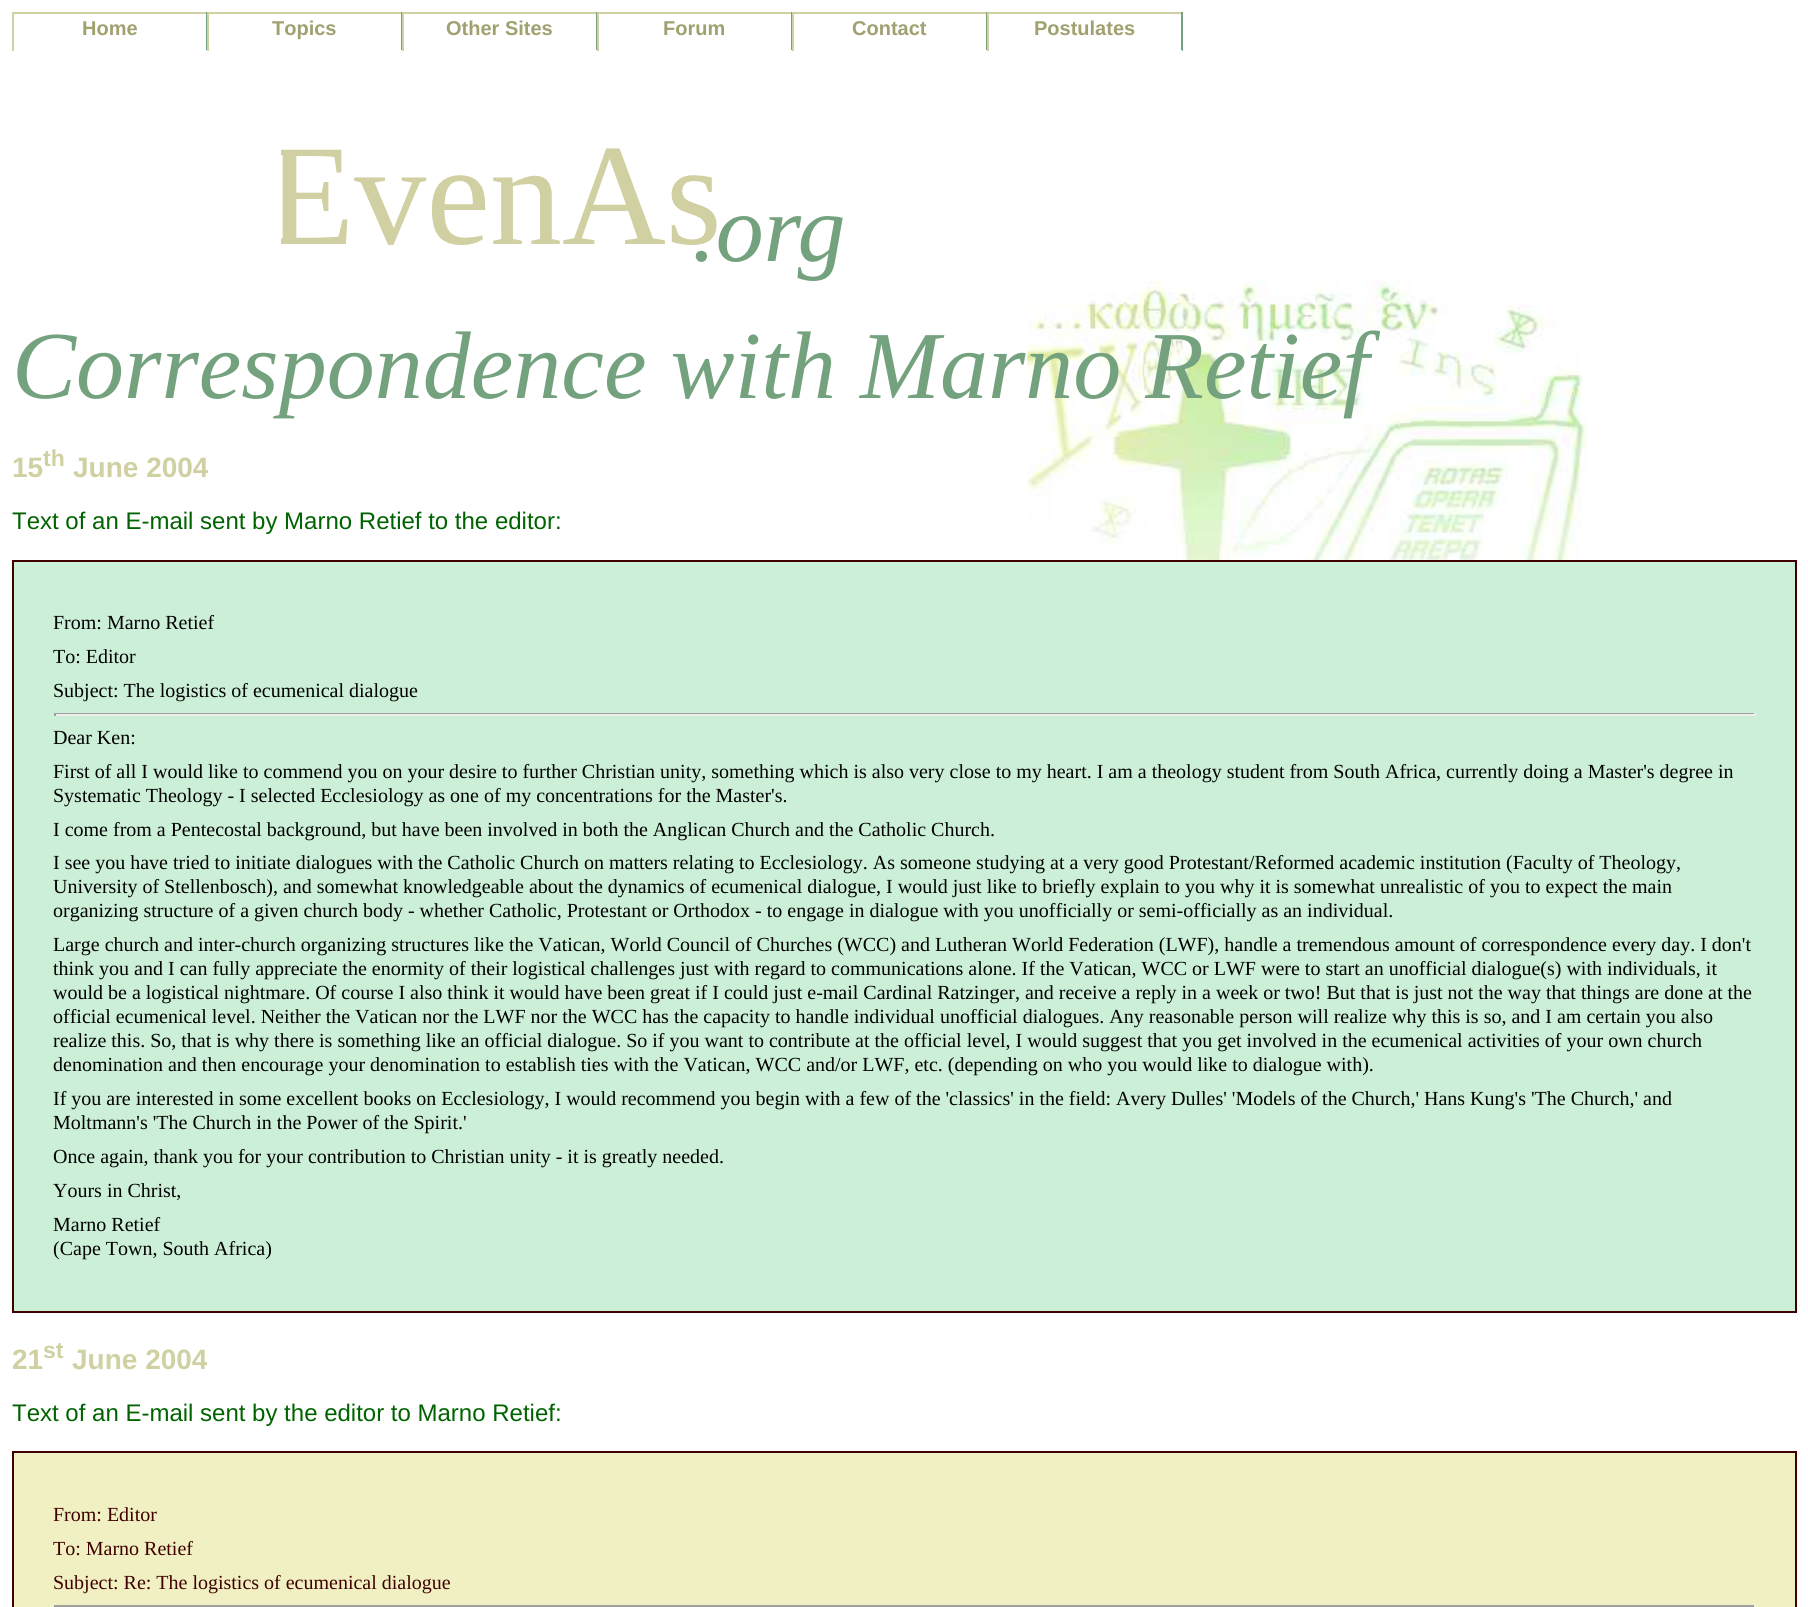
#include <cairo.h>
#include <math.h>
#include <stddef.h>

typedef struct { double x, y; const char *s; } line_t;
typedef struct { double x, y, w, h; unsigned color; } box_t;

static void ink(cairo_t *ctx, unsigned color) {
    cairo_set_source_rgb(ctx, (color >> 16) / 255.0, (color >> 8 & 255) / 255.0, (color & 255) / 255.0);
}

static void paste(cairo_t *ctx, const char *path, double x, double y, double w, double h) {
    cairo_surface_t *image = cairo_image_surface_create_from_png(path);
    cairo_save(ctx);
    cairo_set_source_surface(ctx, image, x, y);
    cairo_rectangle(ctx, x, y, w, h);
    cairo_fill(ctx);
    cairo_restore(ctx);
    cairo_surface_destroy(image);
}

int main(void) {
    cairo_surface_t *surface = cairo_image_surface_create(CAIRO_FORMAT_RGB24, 1808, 1607);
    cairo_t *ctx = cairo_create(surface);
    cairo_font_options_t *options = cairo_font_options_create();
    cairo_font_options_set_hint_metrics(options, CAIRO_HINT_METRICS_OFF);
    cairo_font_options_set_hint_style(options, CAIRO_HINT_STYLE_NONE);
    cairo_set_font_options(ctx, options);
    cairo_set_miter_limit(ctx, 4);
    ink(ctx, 0xFFFFFF);
    cairo_paint(ctx);
    paste(ctx, "media/1.png", 1027, 280, 561, 280);
    {
        static const box_t items[] = {
            {12, 12, 1170, 2, 0xD0D0A2},
            {206, 12, 1, 39, 0x74A27F},
            {206, 50, 1, 1, 0xFFFFFF},
            {12, 12, 2, 39, 0xD0D0A2},
        };
        for (size_t i = 0; i < sizeof items / sizeof *items; i++) {
            ink(ctx, items[i].color);
            cairo_rectangle(ctx, items[i].x, items[i].y, items[i].w, items[i].h);
            cairo_fill(ctx);
        }
    }
    cairo_select_font_face(ctx, "Liberation Sans", CAIRO_FONT_SLANT_NORMAL, CAIRO_FONT_WEIGHT_BOLD);
    cairo_set_font_size(ctx, 20);
    ink(ctx, 0xA0A070);
    cairo_move_to(ctx, 82, 35);
    cairo_show_text(ctx, "Home");
    {
        static const box_t items[] = {
            {401, 12, 1, 39, 0x74A27F},
            {401, 50, 1, 1, 0xFFFFFF},
            {207, 12, 2, 39, 0xD0D0A2},
        };
        for (size_t i = 0; i < sizeof items / sizeof *items; i++) {
            ink(ctx, items[i].color);
            cairo_rectangle(ctx, items[i].x, items[i].y, items[i].w, items[i].h);
            cairo_fill(ctx);
        }
    }
    ink(ctx, 0xA0A070);
    cairo_move_to(ctx, 272, 35);
    cairo_show_text(ctx, "Topics");
    {
        static const box_t items[] = {
            {596, 12, 1, 39, 0x74A27F},
            {596, 50, 1, 1, 0xFFFFFF},
            {402, 12, 2, 39, 0xD0D0A2},
        };
        for (size_t i = 0; i < sizeof items / sizeof *items; i++) {
            ink(ctx, items[i].color);
            cairo_rectangle(ctx, items[i].x, items[i].y, items[i].w, items[i].h);
            cairo_fill(ctx);
        }
    }
    ink(ctx, 0xA0A070);
    cairo_move_to(ctx, 446, 35);
    cairo_show_text(ctx, "Other Sites");
    {
        static const box_t items[] = {
            {791, 12, 1, 39, 0x74A27F},
            {791, 50, 1, 1, 0xFFFFFF},
            {597, 12, 2, 39, 0xD0D0A2},
        };
        for (size_t i = 0; i < sizeof items / sizeof *items; i++) {
            ink(ctx, items[i].color);
            cairo_rectangle(ctx, items[i].x, items[i].y, items[i].w, items[i].h);
            cairo_fill(ctx);
        }
    }
    ink(ctx, 0xA0A070);
    cairo_move_to(ctx, 663, 35);
    cairo_show_text(ctx, "Forum");
    {
        static const box_t items[] = {
            {986, 12, 1, 39, 0x74A27F},
            {986, 50, 1, 1, 0xFFFFFF},
            {792, 12, 2, 39, 0xD0D0A2},
        };
        for (size_t i = 0; i < sizeof items / sizeof *items; i++) {
            ink(ctx, items[i].color);
            cairo_rectangle(ctx, items[i].x, items[i].y, items[i].w, items[i].h);
            cairo_fill(ctx);
        }
    }
    ink(ctx, 0xA0A070);
    cairo_move_to(ctx, 852, 35);
    cairo_show_text(ctx, "Contact");
    {
        static const box_t items[] = {
            {1181, 12, 2, 39, 0x74A27F},
            {1181, 50, 1, 1, 0xFFFFFF},
            {987, 12, 2, 39, 0xD0D0A2},
        };
        for (size_t i = 0; i < sizeof items / sizeof *items; i++) {
            ink(ctx, items[i].color);
            cairo_rectangle(ctx, items[i].x, items[i].y, items[i].w, items[i].h);
            cairo_fill(ctx);
        }
    }
    ink(ctx, 0xA0A070);
    cairo_move_to(ctx, 1034, 35);
    cairo_show_text(ctx, "Postulates");
    paste(ctx, "media/2.png", 281, 148, 562, 133);
    cairo_select_font_face(ctx, "Liberation Serif", CAIRO_FONT_SLANT_ITALIC, CAIRO_FONT_WEIGHT_NORMAL);
    cairo_set_font_size(ctx, 96);
    ink(ctx, 0x74A27F);
    cairo_move_to(ctx, 12, 398);
    cairo_show_text(ctx, "Correspondence with Marno Retief");
    cairo_select_font_face(ctx, "Liberation Sans", CAIRO_FONT_SLANT_NORMAL, CAIRO_FONT_WEIGHT_BOLD);
    cairo_set_font_size(ctx, 28);
    ink(ctx, 0xD0D0A2);
    cairo_move_to(ctx, 12, 477);
    cairo_show_text(ctx, "15");
    cairo_set_font_size(ctx, 23);
    cairo_move_to(ctx, 43, 466);
    cairo_show_text(ctx, "th");
    cairo_set_font_size(ctx, 28);
    cairo_move_to(ctx, 73, 477);
    cairo_show_text(ctx, "June 2004");
    cairo_select_font_face(ctx, "Liberation Sans", CAIRO_FONT_SLANT_NORMAL, CAIRO_FONT_WEIGHT_NORMAL);
    cairo_set_font_size(ctx, 24);
    ink(ctx, 0x006300);
    cairo_move_to(ctx, 12, 529);
    cairo_show_text(ctx, "Text of an E-mail sent by Marno Retief to the editor:");
    ink(ctx, 0xCCEFD7);
    cairo_rectangle(ctx, 13, 561, 1783, 751);
    cairo_fill_preserve(ctx);
    ink(ctx, 0x400000);
    cairo_stroke(ctx);
    cairo_select_font_face(ctx, "Liberation Serif", CAIRO_FONT_SLANT_NORMAL, CAIRO_FONT_WEIGHT_NORMAL);
    cairo_set_font_size(ctx, 20);
    ink(ctx, 0x000000);
    {
        static const line_t items[] = {
            {53, 629, "From: Marno Retief"},
            {53, 663, "To: Editor"},
            {53, 697, "Subject: The logistics of ecumenical dialogue"},
        };
        for (size_t i = 0; i < sizeof items / sizeof *items; i++) {
            cairo_move_to(ctx, items[i].x, items[i].y);
            cairo_show_text(ctx, items[i].s);
        }
    }
    {
        static const box_t items[] = {
            {54, 713, 1701, 1, 0x9F9F9F},
            {1754, 713, 2, 3, 0xEEEEEE},
            {54, 714, 1701, 2, 0xEEEEEE},
            {54, 713, 2, 3, 0x9F9F9F},
        };
        for (size_t i = 0; i < sizeof items / sizeof *items; i++) {
            ink(ctx, items[i].color);
            cairo_rectangle(ctx, items[i].x, items[i].y, items[i].w, items[i].h);
            cairo_fill(ctx);
        }
    }
    ink(ctx, 0x000000);
    {
        static const line_t items[] = {
            {53, 744, "Dear Ken:"},
            {53, 778, "First of all I would like to commend you on your desire to further Christian unity, something which is also very close to my heart. I am a theology student from South Africa, currently doing a Master's degree in"},
            {53, 802, "Systematic Theology - I selected Ecclesiology as one of my concentrations for the Master's."},
            {53, 836, "I come from a Pentecostal background, but have been involved in both the Anglican Church and the Catholic Church."},
            {53, 869, "I see you have tried to initiate dialogues with the Catholic Church on matters relating to Ecclesiology. As someone studying at a very good Protestant/Reformed academic institution (Faculty of Theology,"},
            {53, 893, "University of Stellenbosch), and somewhat knowledgeable about the dynamics of ecumenical dialogue, I would just like to briefly explain to you why it is somewhat unrealistic of you to expect the main"},
            {53, 917, "organizing structure of a given church body - whether Catholic, Protestant or Orthodox - to engage in dialogue with you unofficially or semi-officially as an individual."},
            {53, 951, "Large church and inter-church organizing structures like the Vatican, World Council of Churches (WCC) and Lutheran World Federation (LWF), handle a tremendous amount of correspondence every day. I don't"},
            {53, 975, "think you and I can fully appreciate the enormity of their logistical challenges just with regard to communications alone. If the Vatican, WCC or LWF were to start an unofficial dialogue(s) with individuals, it"},
            {53, 999, "would be a logistical nightmare. Of course I also think it would have been great if I could just e-mail Cardinal Ratzinger, and receive a reply in a week or two! But that is just not the way that things are done at the"},
            {53, 1023, "official ecumenical level. Neither the Vatican nor the LWF nor the WCC has the capacity to handle individual unofficial dialogues. Any reasonable person will realize why this is so, and I am certain you also"},
            {53, 1047, "realize this. So, that is why there is something like an official dialogue. So if you want to contribute at the official level, I would suggest that you get involved in the ecumenical activities of your own church"},
            {53, 1071, "denomination and then encourage your denomination to establish ties with the Vatican, WCC and/or LWF, etc. (depending on who you would like to dialogue with)."},
            {53, 1105, "If you are interested in some excellent books on Ecclesiology, I would recommend you begin with a few of the 'classics' in the field: Avery Dulles' 'Models of the Church,' Hans Kung's 'The Church,' and"},
            {53, 1129, "Moltmann's 'The Church in the Power of the Spirit.'"},
            {53, 1163, "Once again, thank you for your contribution to Christian unity - it is greatly needed."},
            {53, 1197, "Yours in Christ,"},
            {53, 1231, "Marno Retief"},
            {53, 1255, "(Cape Town, South Africa)"},
        };
        for (size_t i = 0; i < sizeof items / sizeof *items; i++) {
            cairo_move_to(ctx, items[i].x, items[i].y);
            cairo_show_text(ctx, items[i].s);
        }
    }
    cairo_select_font_face(ctx, "Liberation Sans", CAIRO_FONT_SLANT_NORMAL, CAIRO_FONT_WEIGHT_BOLD);
    cairo_set_font_size(ctx, 28);
    ink(ctx, 0xD0D0A2);
    cairo_move_to(ctx, 12, 1369);
    cairo_show_text(ctx, "21");
    cairo_set_font_size(ctx, 23);
    cairo_move_to(ctx, 43, 1358);
    cairo_show_text(ctx, "st");
    cairo_set_font_size(ctx, 28);
    cairo_move_to(ctx, 72, 1369);
    cairo_show_text(ctx, "June 2004");
    cairo_select_font_face(ctx, "Liberation Sans", CAIRO_FONT_SLANT_NORMAL, CAIRO_FONT_WEIGHT_NORMAL);
    cairo_set_font_size(ctx, 24);
    ink(ctx, 0x006300);
    cairo_move_to(ctx, 12, 1421);
    cairo_show_text(ctx, "Text of an E-mail sent by the editor to Marno Retief:");
    ink(ctx, 0xF0F0C2);
    cairo_rectangle(ctx, 13, 1452, 1783, 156);
    cairo_fill_preserve(ctx);
    ink(ctx, 0x400000);
    cairo_stroke(ctx);
    cairo_select_font_face(ctx, "Liberation Serif", CAIRO_FONT_SLANT_NORMAL, CAIRO_FONT_WEIGHT_NORMAL);
    cairo_set_font_size(ctx, 20);
    {
        static const line_t items[] = {
            {53, 1521, "From: Editor"},
            {53, 1555, "To: Marno Retief"},
            {53, 1589, "Subject: Re: The logistics of ecumenical dialogue"},
        };
        for (size_t i = 0; i < sizeof items / sizeof *items; i++) {
            cairo_move_to(ctx, items[i].x, items[i].y);
            cairo_show_text(ctx, items[i].s);
        }
    }
    ink(ctx, 0x9F9F9F);
    cairo_rectangle(ctx, 54, 1605, 1701, 2);
    cairo_fill(ctx);
    ink(ctx, 0xEEEEEE);
    cairo_rectangle(ctx, 1754, 1605, 2, 2);
    cairo_fill(ctx);
    cairo_surface_write_to_png(surface, "image.png");
    cairo_font_options_destroy(options);
    cairo_destroy(ctx);
    cairo_surface_destroy(surface);
    return 0;
}
